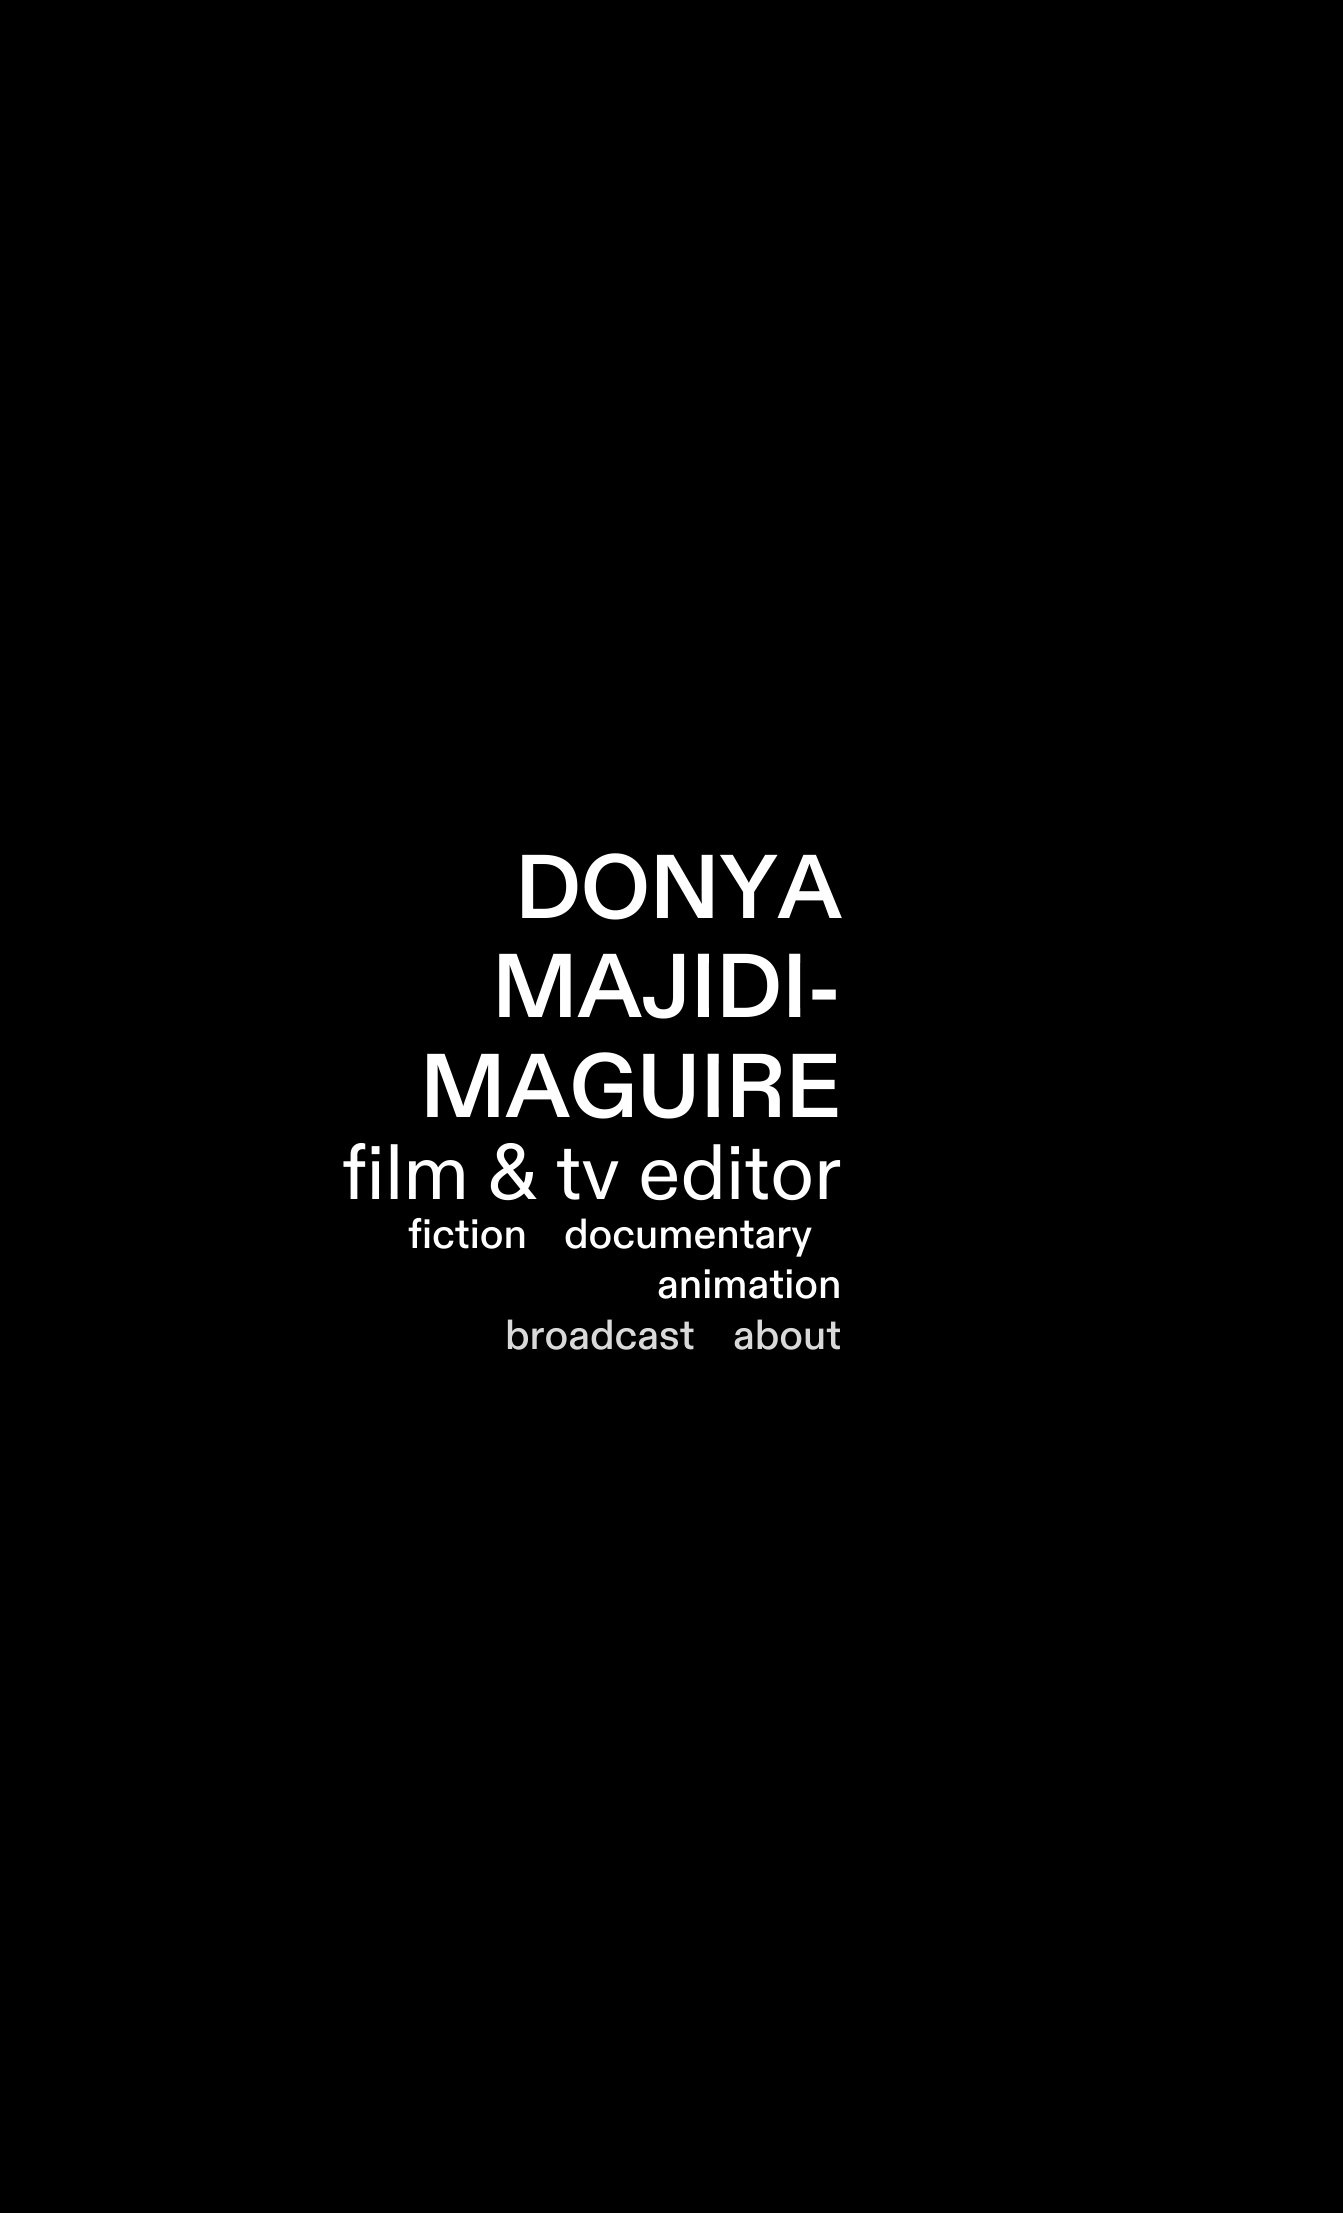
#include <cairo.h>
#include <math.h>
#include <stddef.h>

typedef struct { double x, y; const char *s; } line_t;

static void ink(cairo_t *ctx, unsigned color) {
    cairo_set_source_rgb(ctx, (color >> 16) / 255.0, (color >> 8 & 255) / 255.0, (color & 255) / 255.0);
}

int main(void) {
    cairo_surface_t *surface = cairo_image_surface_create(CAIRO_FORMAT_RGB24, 1343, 2213);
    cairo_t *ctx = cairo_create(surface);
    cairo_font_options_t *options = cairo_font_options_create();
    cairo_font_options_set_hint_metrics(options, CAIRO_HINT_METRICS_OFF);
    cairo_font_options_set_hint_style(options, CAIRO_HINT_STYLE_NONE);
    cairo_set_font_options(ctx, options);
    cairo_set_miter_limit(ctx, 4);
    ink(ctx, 0x000000);
    cairo_paint(ctx);
    cairo_select_font_face(ctx, "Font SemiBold", CAIRO_FONT_SLANT_NORMAL, CAIRO_FONT_WEIGHT_NORMAL);
    cairo_set_font_size(ctx, 90.25);
    ink(ctx, 0xFFFFFF);
    {
        static const line_t items[] = {
            {515, 918, "DONYA"},
            {492, 1017, "MAJIDI-"},
            {420, 1117, "MAGUIRE"},
        };
        for (size_t i = 0; i < sizeof items / sizeof *items; i++) {
            cairo_move_to(ctx, items[i].x, items[i].y);
            cairo_show_text(ctx, items[i].s);
        }
    }
    cairo_select_font_face(ctx, "Font", CAIRO_FONT_SLANT_NORMAL, CAIRO_FONT_WEIGHT_NORMAL);
    cairo_set_font_size(ctx, 78.25);
    cairo_move_to(ctx, 342, 1199);
    cairo_show_text(ctx, "film & tv editor");
    cairo_select_font_face(ctx, "Font Medium", CAIRO_FONT_SLANT_NORMAL, CAIRO_FONT_WEIGHT_NORMAL);
    cairo_set_font_size(ctx, 42);
    {
        static const line_t items[] = {
            {408, 1248, "fiction"},
            {564, 1248, "documentary"},
            {657, 1298, "animation"},
        };
        for (size_t i = 0; i < sizeof items / sizeof *items; i++) {
            cairo_move_to(ctx, items[i].x, items[i].y);
            cairo_show_text(ctx, items[i].s);
        }
    }
    ink(ctx, 0xD9D9D9);
    cairo_move_to(ctx, 505, 1349);
    cairo_show_text(ctx, "broadcast");
    cairo_move_to(ctx, 733, 1349);
    cairo_show_text(ctx, "about");
    cairo_surface_write_to_png(surface, "image.png");
    cairo_font_options_destroy(options);
    cairo_destroy(ctx);
    cairo_surface_destroy(surface);
    return 0;
}
